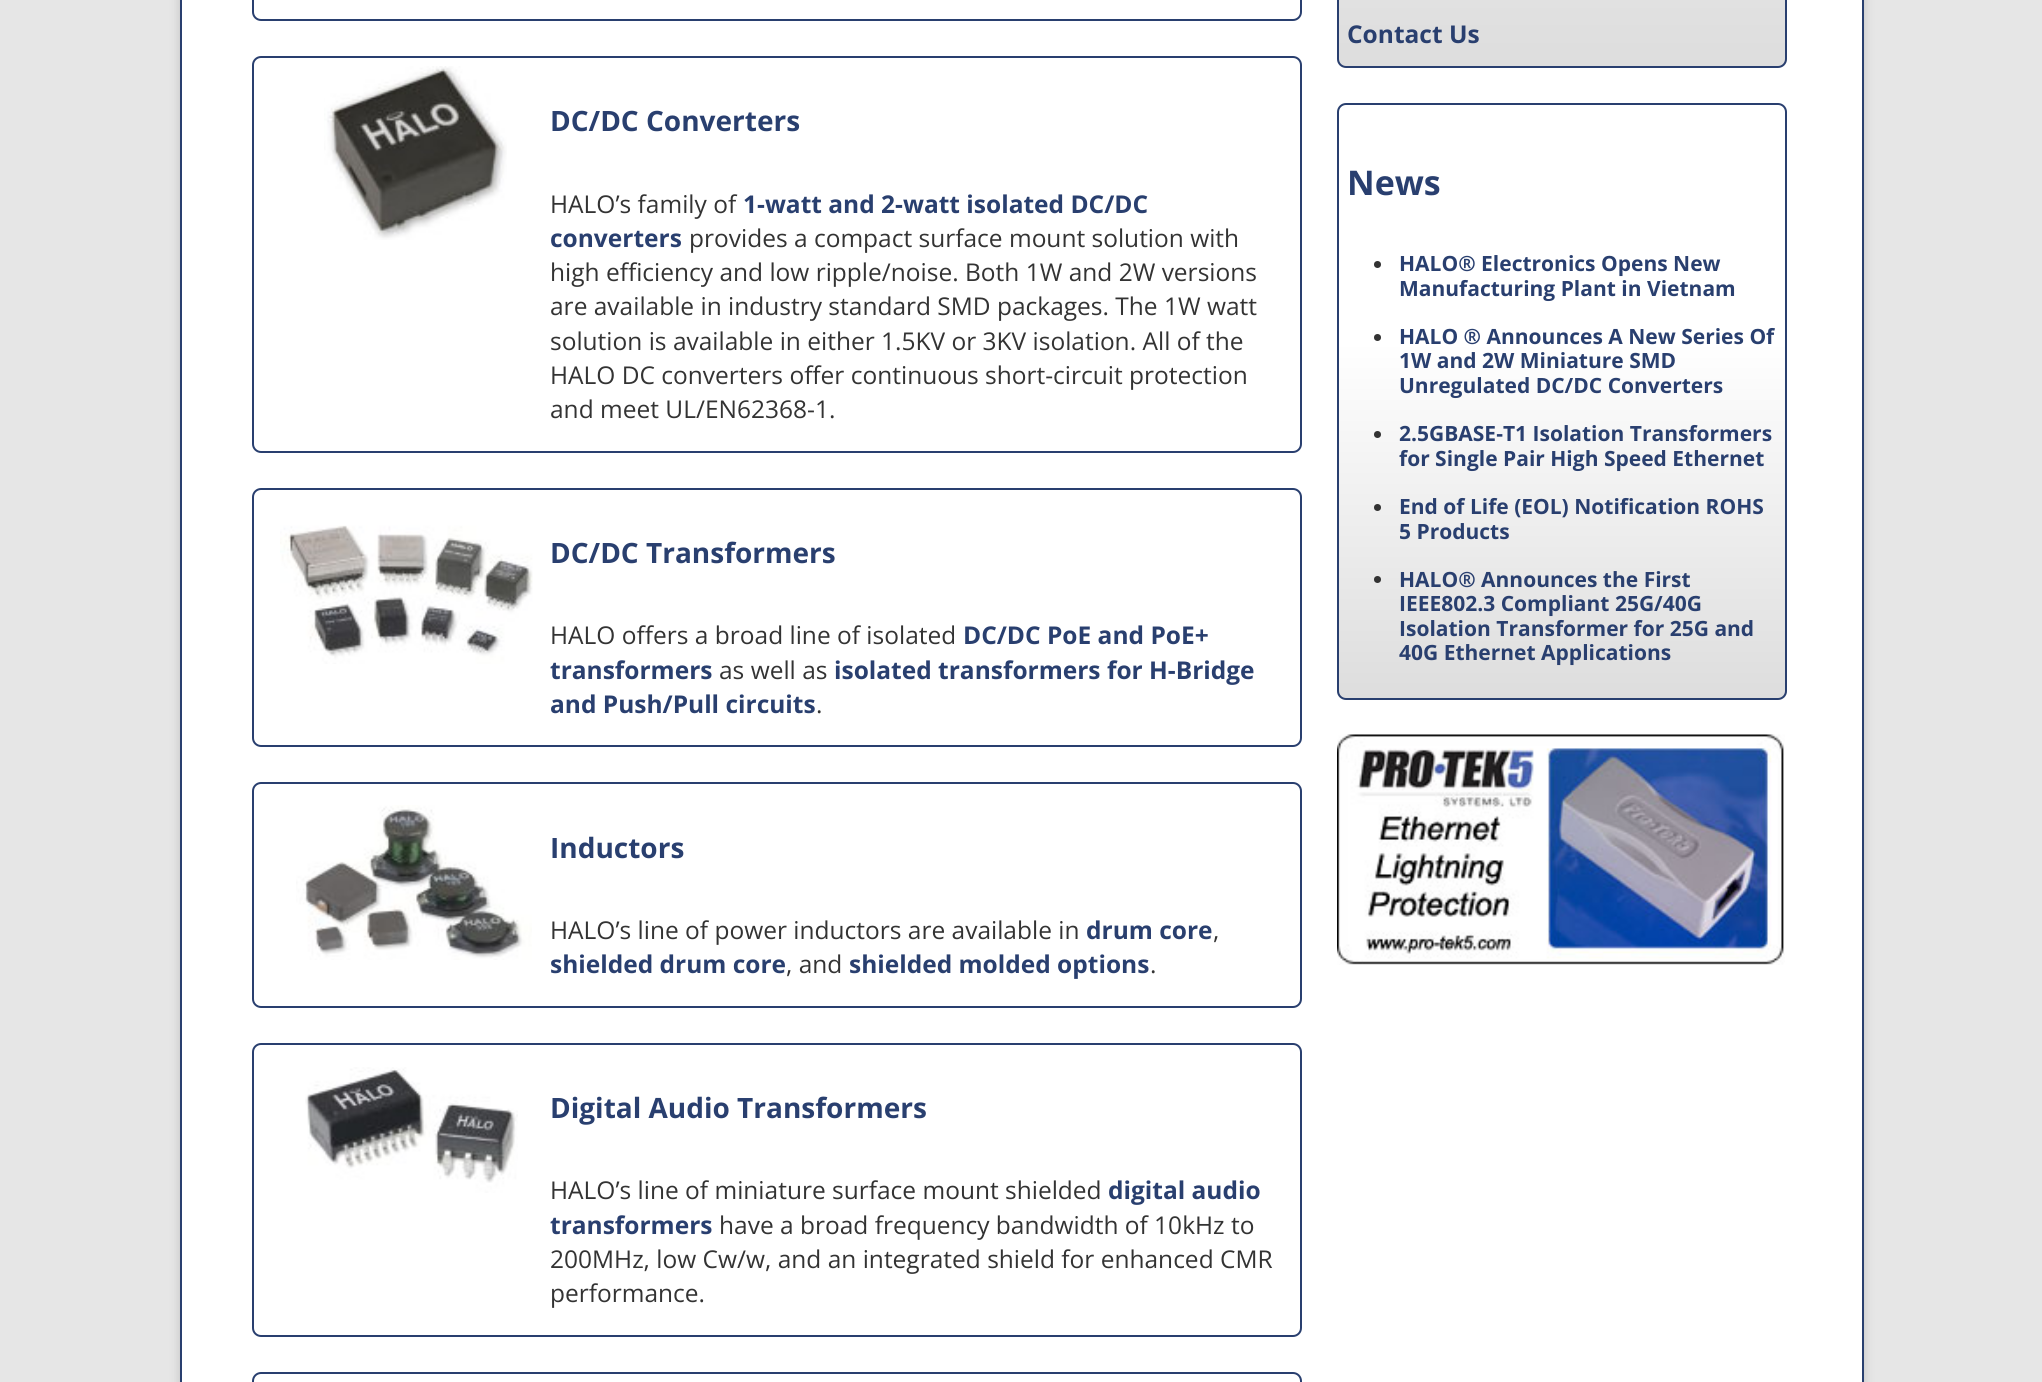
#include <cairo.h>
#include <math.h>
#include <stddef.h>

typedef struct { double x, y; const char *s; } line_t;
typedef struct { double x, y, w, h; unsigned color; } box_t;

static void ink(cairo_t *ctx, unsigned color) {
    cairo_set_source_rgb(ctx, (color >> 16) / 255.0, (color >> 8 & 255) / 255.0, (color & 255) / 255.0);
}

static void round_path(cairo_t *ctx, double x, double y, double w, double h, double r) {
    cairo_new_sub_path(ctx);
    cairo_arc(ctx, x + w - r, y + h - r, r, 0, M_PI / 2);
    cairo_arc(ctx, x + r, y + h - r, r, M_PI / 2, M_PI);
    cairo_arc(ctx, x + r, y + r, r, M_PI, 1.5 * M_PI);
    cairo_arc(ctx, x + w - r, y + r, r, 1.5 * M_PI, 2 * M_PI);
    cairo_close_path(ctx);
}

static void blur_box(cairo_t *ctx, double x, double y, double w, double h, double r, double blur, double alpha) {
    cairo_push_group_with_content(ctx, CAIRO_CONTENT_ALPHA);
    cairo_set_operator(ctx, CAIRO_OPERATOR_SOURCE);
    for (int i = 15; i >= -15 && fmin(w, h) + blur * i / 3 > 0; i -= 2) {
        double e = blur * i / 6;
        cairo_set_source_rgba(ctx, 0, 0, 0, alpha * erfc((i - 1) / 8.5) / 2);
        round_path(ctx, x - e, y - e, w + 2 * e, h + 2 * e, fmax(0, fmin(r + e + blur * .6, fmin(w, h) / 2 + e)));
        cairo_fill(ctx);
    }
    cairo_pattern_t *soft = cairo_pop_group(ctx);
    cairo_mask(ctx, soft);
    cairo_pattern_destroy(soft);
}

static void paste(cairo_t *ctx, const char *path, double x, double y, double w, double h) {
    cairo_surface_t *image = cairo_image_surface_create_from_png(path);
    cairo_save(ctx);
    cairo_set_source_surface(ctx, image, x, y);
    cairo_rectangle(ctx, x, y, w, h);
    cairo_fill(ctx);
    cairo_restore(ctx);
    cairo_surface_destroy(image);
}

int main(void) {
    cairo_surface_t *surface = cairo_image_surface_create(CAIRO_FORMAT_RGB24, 2042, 1382);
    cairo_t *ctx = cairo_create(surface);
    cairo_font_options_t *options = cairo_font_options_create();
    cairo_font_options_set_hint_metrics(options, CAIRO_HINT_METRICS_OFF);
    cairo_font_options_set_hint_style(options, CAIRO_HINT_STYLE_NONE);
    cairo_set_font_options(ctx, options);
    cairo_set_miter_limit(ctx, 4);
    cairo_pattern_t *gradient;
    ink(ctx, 0xE6E6E6);
    cairo_paint(ctx);
    ink(ctx, 0x646464);
    blur_box(ctx, 180, -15, 1684, 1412, 0, 5, 0.3);
    {
        static const box_t items[] = {
            {182, 0, 1680, 1382, 0xFFFFFF},
            {1862, 0, 2, 1382, 0x293F6F},
            {180, 0, 2, 1382, 0x293F6F},
        };
        for (size_t i = 0; i < sizeof items / sizeof *items; i++) {
            ink(ctx, items[i].color);
            cairo_rectangle(ctx, items[i].x, items[i].y, items[i].w, items[i].h);
            cairo_fill(ctx);
        }
    }
    cairo_save(ctx);
    round_path(ctx, 1337, -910, 450, 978, 9);
    cairo_clip(ctx);
    gradient = cairo_pattern_create_linear(1562, -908, 1562, 67);
    cairo_pattern_add_color_stop_rgba(gradient, 0, 1, 1, 1, 1);
    cairo_pattern_add_color_stop_rgba(gradient, 0.4, 1, 1, 1, 1);
    cairo_pattern_add_color_stop_rgba(gradient, 1, 0.867, 0.867, 0.867, 1);
    cairo_set_source(ctx, gradient);
    cairo_pattern_destroy(gradient);
    cairo_rectangle(ctx, 1337, 0, 450, 67);
    cairo_fill(ctx);
    cairo_restore(ctx);
    round_path(ctx, 1338, -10, 448, 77, 8);
    cairo_stroke(ctx);
    cairo_select_font_face(ctx, "Open Sans", CAIRO_FONT_SLANT_NORMAL, CAIRO_FONT_WEIGHT_BOLD);
    cairo_set_font_size(ctx, 24.5);
    cairo_move_to(ctx, 1347, 43);
    cairo_show_text(ctx, "Contact Us");
    round_path(ctx, 253, -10, 1048, 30, 8);
    cairo_stroke(ctx);
    round_path(ctx, 253, 57, 1048, 395, 8);
    cairo_stroke(ctx);
    paste(ctx, "media/1.png", 324, 66, 183, 174);
    cairo_set_font_size(ctx, 28);
    cairo_move_to(ctx, 550, 131);
    cairo_show_text(ctx, "DC/DC Converters");
    cairo_select_font_face(ctx, "Open Sans", CAIRO_FONT_SLANT_NORMAL, CAIRO_FONT_WEIGHT_NORMAL);
    cairo_set_font_size(ctx, 24.5);
    ink(ctx, 0x333333);
    cairo_move_to(ctx, 550, 213);
    cairo_show_text(ctx, "HALO’s family of");
    cairo_select_font_face(ctx, "Open Sans", CAIRO_FONT_SLANT_NORMAL, CAIRO_FONT_WEIGHT_BOLD);
    ink(ctx, 0x293F6F);
    cairo_move_to(ctx, 743, 213);
    cairo_show_text(ctx, "1-watt and 2-watt isolated DC/DC");
    cairo_move_to(ctx, 550, 247);
    cairo_show_text(ctx, "converters");
    cairo_select_font_face(ctx, "Open Sans", CAIRO_FONT_SLANT_NORMAL, CAIRO_FONT_WEIGHT_NORMAL);
    ink(ctx, 0x333333);
    {
        static const line_t items[] = {
            {689, 247, "provides a compact surface mount solution with"},
            {550, 281, "high efficiency and low ripple/noise. Both 1W and 2W versions"},
            {550, 315, "are available in industry standard SMD packages. The 1W watt"},
            {550, 350, "solution is available in either 1.5KV or 3KV isolation. All of the"},
            {550, 384, "HALO DC converters offer continuous short-circuit protection"},
            {550, 418, "and meet UL/EN62368-1."},
        };
        for (size_t i = 0; i < sizeof items / sizeof *items; i++) {
            cairo_move_to(ctx, items[i].x, items[i].y);
            cairo_show_text(ctx, items[i].s);
        }
    }
    round_path(ctx, 253, 489, 1048, 257, 8);
    ink(ctx, 0x293F6F);
    cairo_stroke(ctx);
    paste(ctx, "media/2.png", 280, 525, 253, 139);
    cairo_select_font_face(ctx, "Open Sans", CAIRO_FONT_SLANT_NORMAL, CAIRO_FONT_WEIGHT_BOLD);
    cairo_set_font_size(ctx, 28);
    cairo_move_to(ctx, 550, 563);
    cairo_show_text(ctx, "DC/DC Transformers");
    cairo_select_font_face(ctx, "Open Sans", CAIRO_FONT_SLANT_NORMAL, CAIRO_FONT_WEIGHT_NORMAL);
    cairo_set_font_size(ctx, 24.5);
    ink(ctx, 0x333333);
    cairo_move_to(ctx, 550, 644);
    cairo_show_text(ctx, "HALO offers a broad line of isolated");
    cairo_select_font_face(ctx, "Open Sans", CAIRO_FONT_SLANT_NORMAL, CAIRO_FONT_WEIGHT_BOLD);
    ink(ctx, 0x293F6F);
    cairo_move_to(ctx, 963, 644);
    cairo_show_text(ctx, "DC/DC PoE and PoE+");
    cairo_move_to(ctx, 550, 679);
    cairo_show_text(ctx, "transformers");
    cairo_select_font_face(ctx, "Open Sans", CAIRO_FONT_SLANT_NORMAL, CAIRO_FONT_WEIGHT_NORMAL);
    ink(ctx, 0x333333);
    cairo_move_to(ctx, 719, 679);
    cairo_show_text(ctx, "as well as");
    cairo_select_font_face(ctx, "Open Sans", CAIRO_FONT_SLANT_NORMAL, CAIRO_FONT_WEIGHT_BOLD);
    ink(ctx, 0x293F6F);
    cairo_move_to(ctx, 834, 679);
    cairo_show_text(ctx, "isolated transformers for H-Bridge");
    cairo_move_to(ctx, 550, 713);
    cairo_show_text(ctx, "and Push/Pull circuits");
    cairo_select_font_face(ctx, "Open Sans", CAIRO_FONT_SLANT_NORMAL, CAIRO_FONT_WEIGHT_NORMAL);
    ink(ctx, 0x333333);
    cairo_move_to(ctx, 816, 713);
    cairo_show_text(ctx, ".");
    round_path(ctx, 253, 783, 1048, 224, 8);
    ink(ctx, 0x293F6F);
    cairo_stroke(ctx);
    paste(ctx, "media/3.png", 296, 805, 236, 155);
    cairo_select_font_face(ctx, "Open Sans", CAIRO_FONT_SLANT_NORMAL, CAIRO_FONT_WEIGHT_BOLD);
    cairo_set_font_size(ctx, 28);
    cairo_move_to(ctx, 550, 858);
    cairo_show_text(ctx, "Inductors");
    cairo_select_font_face(ctx, "Open Sans", CAIRO_FONT_SLANT_NORMAL, CAIRO_FONT_WEIGHT_NORMAL);
    cairo_set_font_size(ctx, 24.5);
    ink(ctx, 0x333333);
    cairo_move_to(ctx, 550, 939);
    cairo_show_text(ctx, "HALO’s line of power inductors are available in");
    cairo_select_font_face(ctx, "Open Sans", CAIRO_FONT_SLANT_NORMAL, CAIRO_FONT_WEIGHT_BOLD);
    ink(ctx, 0x293F6F);
    cairo_move_to(ctx, 1086, 939);
    cairo_show_text(ctx, "drum core");
    cairo_select_font_face(ctx, "Open Sans", CAIRO_FONT_SLANT_NORMAL, CAIRO_FONT_WEIGHT_NORMAL);
    ink(ctx, 0x333333);
    cairo_move_to(ctx, 1213, 939);
    cairo_show_text(ctx, ",");
    cairo_select_font_face(ctx, "Open Sans", CAIRO_FONT_SLANT_NORMAL, CAIRO_FONT_WEIGHT_BOLD);
    ink(ctx, 0x293F6F);
    cairo_move_to(ctx, 550, 973);
    cairo_show_text(ctx, "shielded drum core");
    cairo_select_font_face(ctx, "Open Sans", CAIRO_FONT_SLANT_NORMAL, CAIRO_FONT_WEIGHT_NORMAL);
    ink(ctx, 0x333333);
    cairo_move_to(ctx, 786, 973);
    cairo_show_text(ctx, ", and");
    cairo_select_font_face(ctx, "Open Sans", CAIRO_FONT_SLANT_NORMAL, CAIRO_FONT_WEIGHT_BOLD);
    ink(ctx, 0x293F6F);
    cairo_move_to(ctx, 849, 973);
    cairo_show_text(ctx, "shielded molded options");
    cairo_select_font_face(ctx, "Open Sans", CAIRO_FONT_SLANT_NORMAL, CAIRO_FONT_WEIGHT_NORMAL);
    ink(ctx, 0x333333);
    cairo_move_to(ctx, 1150, 973);
    cairo_show_text(ctx, ".");
    round_path(ctx, 253, 1044, 1048, 292, 8);
    ink(ctx, 0x293F6F);
    cairo_stroke(ctx);
    paste(ctx, "media/4.png", 305, 1067, 213, 126);
    cairo_select_font_face(ctx, "Open Sans", CAIRO_FONT_SLANT_NORMAL, CAIRO_FONT_WEIGHT_BOLD);
    cairo_set_font_size(ctx, 28);
    cairo_move_to(ctx, 550, 1118);
    cairo_show_text(ctx, "Digital Audio Transformers");
    cairo_select_font_face(ctx, "Open Sans", CAIRO_FONT_SLANT_NORMAL, CAIRO_FONT_WEIGHT_NORMAL);
    cairo_set_font_size(ctx, 24.5);
    ink(ctx, 0x333333);
    cairo_move_to(ctx, 550, 1199);
    cairo_show_text(ctx, "HALO’s line of miniature surface mount shielded");
    cairo_select_font_face(ctx, "Open Sans", CAIRO_FONT_SLANT_NORMAL, CAIRO_FONT_WEIGHT_BOLD);
    ink(ctx, 0x293F6F);
    cairo_move_to(ctx, 1108, 1199);
    cairo_show_text(ctx, "digital audio");
    cairo_move_to(ctx, 550, 1234);
    cairo_show_text(ctx, "transformers");
    cairo_select_font_face(ctx, "Open Sans", CAIRO_FONT_SLANT_NORMAL, CAIRO_FONT_WEIGHT_NORMAL);
    ink(ctx, 0x333333);
    {
        static const line_t items[] = {
            {719, 1234, "have a broad frequency bandwidth of 10kHz to"},
            {550, 1268, "200MHz, low Cw/w, and an integrated shield for enhanced CMR"},
            {550, 1302, "performance."},
        };
        for (size_t i = 0; i < sizeof items / sizeof *items; i++) {
            cairo_move_to(ctx, items[i].x, items[i].y);
            cairo_show_text(ctx, items[i].s);
        }
    }
    round_path(ctx, 253, 1373, 1048, 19, 8);
    ink(ctx, 0x293F6F);
    cairo_stroke(ctx);
    cairo_save(ctx);
    round_path(ctx, 1337, 103, 450, 597, 9);
    cairo_clip(ctx);
    gradient = cairo_pattern_create_linear(1562, 105, 1562, 698);
    cairo_pattern_add_color_stop_rgba(gradient, 0, 1, 1, 1, 1);
    cairo_pattern_add_color_stop_rgba(gradient, 0.4, 1, 1, 1, 1);
    cairo_pattern_add_color_stop_rgba(gradient, 1, 0.867, 0.867, 0.867, 1);
    cairo_set_source(ctx, gradient);
    cairo_pattern_destroy(gradient);
    cairo_rectangle(ctx, 1337, 105, 450, 593);
    cairo_fill(ctx);
    cairo_restore(ctx);
    round_path(ctx, 1338, 104, 448, 595, 8);
    cairo_stroke(ctx);
    cairo_select_font_face(ctx, "Open Sans", CAIRO_FONT_SLANT_NORMAL, CAIRO_FONT_WEIGHT_BOLD);
    cairo_set_font_size(ctx, 34);
    cairo_move_to(ctx, 1347, 195);
    cairo_show_text(ctx, "News");
    ink(ctx, 0x333333);
    cairo_new_path(ctx);
    cairo_arc(ctx, 1377.5, 264.5, 3.5, 0, 2 * M_PI);
    cairo_fill(ctx);
    cairo_set_font_size(ctx, 21);
    ink(ctx, 0x293F6F);
    cairo_move_to(ctx, 1399, 271);
    cairo_show_text(ctx, "HALO® Electronics Opens New");
    cairo_move_to(ctx, 1399, 296);
    cairo_show_text(ctx, "Manufacturing Plant in Vietnam");
    ink(ctx, 0x333333);
    cairo_new_path(ctx);
    cairo_arc(ctx, 1377.5, 337.5, 3.5, 0, 2 * M_PI);
    cairo_fill(ctx);
    ink(ctx, 0x293F6F);
    {
        static const line_t items[] = {
            {1399, 344, "HALO ® Announces A New Series Of"},
            {1399, 368, "1W and 2W Miniature SMD"},
            {1399, 393, "Unregulated DC/DC Converters"},
        };
        for (size_t i = 0; i < sizeof items / sizeof *items; i++) {
            cairo_move_to(ctx, items[i].x, items[i].y);
            cairo_show_text(ctx, items[i].s);
        }
    }
    ink(ctx, 0x333333);
    cairo_new_path(ctx);
    cairo_arc(ctx, 1377.5, 434.5, 3.5, 0, 2 * M_PI);
    cairo_fill(ctx);
    ink(ctx, 0x293F6F);
    cairo_move_to(ctx, 1399, 441);
    cairo_show_text(ctx, "2.5GBASE-T1 Isolation Transformers");
    cairo_move_to(ctx, 1399, 466);
    cairo_show_text(ctx, "for Single Pair High Speed Ethernet");
    ink(ctx, 0x333333);
    cairo_new_path(ctx);
    cairo_arc(ctx, 1377.5, 507.5, 3.5, 0, 2 * M_PI);
    cairo_fill(ctx);
    ink(ctx, 0x293F6F);
    cairo_move_to(ctx, 1399, 514);
    cairo_show_text(ctx, "End of Life (EOL) Notification ROHS");
    cairo_move_to(ctx, 1399, 539);
    cairo_show_text(ctx, "5 Products");
    ink(ctx, 0x333333);
    cairo_new_path(ctx);
    cairo_arc(ctx, 1377.5, 579.5, 3.5, 0, 2 * M_PI);
    cairo_fill(ctx);
    ink(ctx, 0x293F6F);
    {
        static const line_t items[] = {
            {1399, 587, "HALO® Announces the First"},
            {1399, 611, "IEEE802.3 Compliant 25G/40G"},
            {1399, 636, "Isolation Transformer for 25G and"},
            {1399, 660, "40G Ethernet Applications"},
        };
        for (size_t i = 0; i < sizeof items / sizeof *items; i++) {
            cairo_move_to(ctx, items[i].x, items[i].y);
            cairo_show_text(ctx, items[i].s);
        }
    }
    paste(ctx, "media/5.png", 1337, 734, 448, 231);
    cairo_surface_write_to_png(surface, "image.png");
    cairo_font_options_destroy(options);
    cairo_destroy(ctx);
    cairo_surface_destroy(surface);
    return 0;
}
